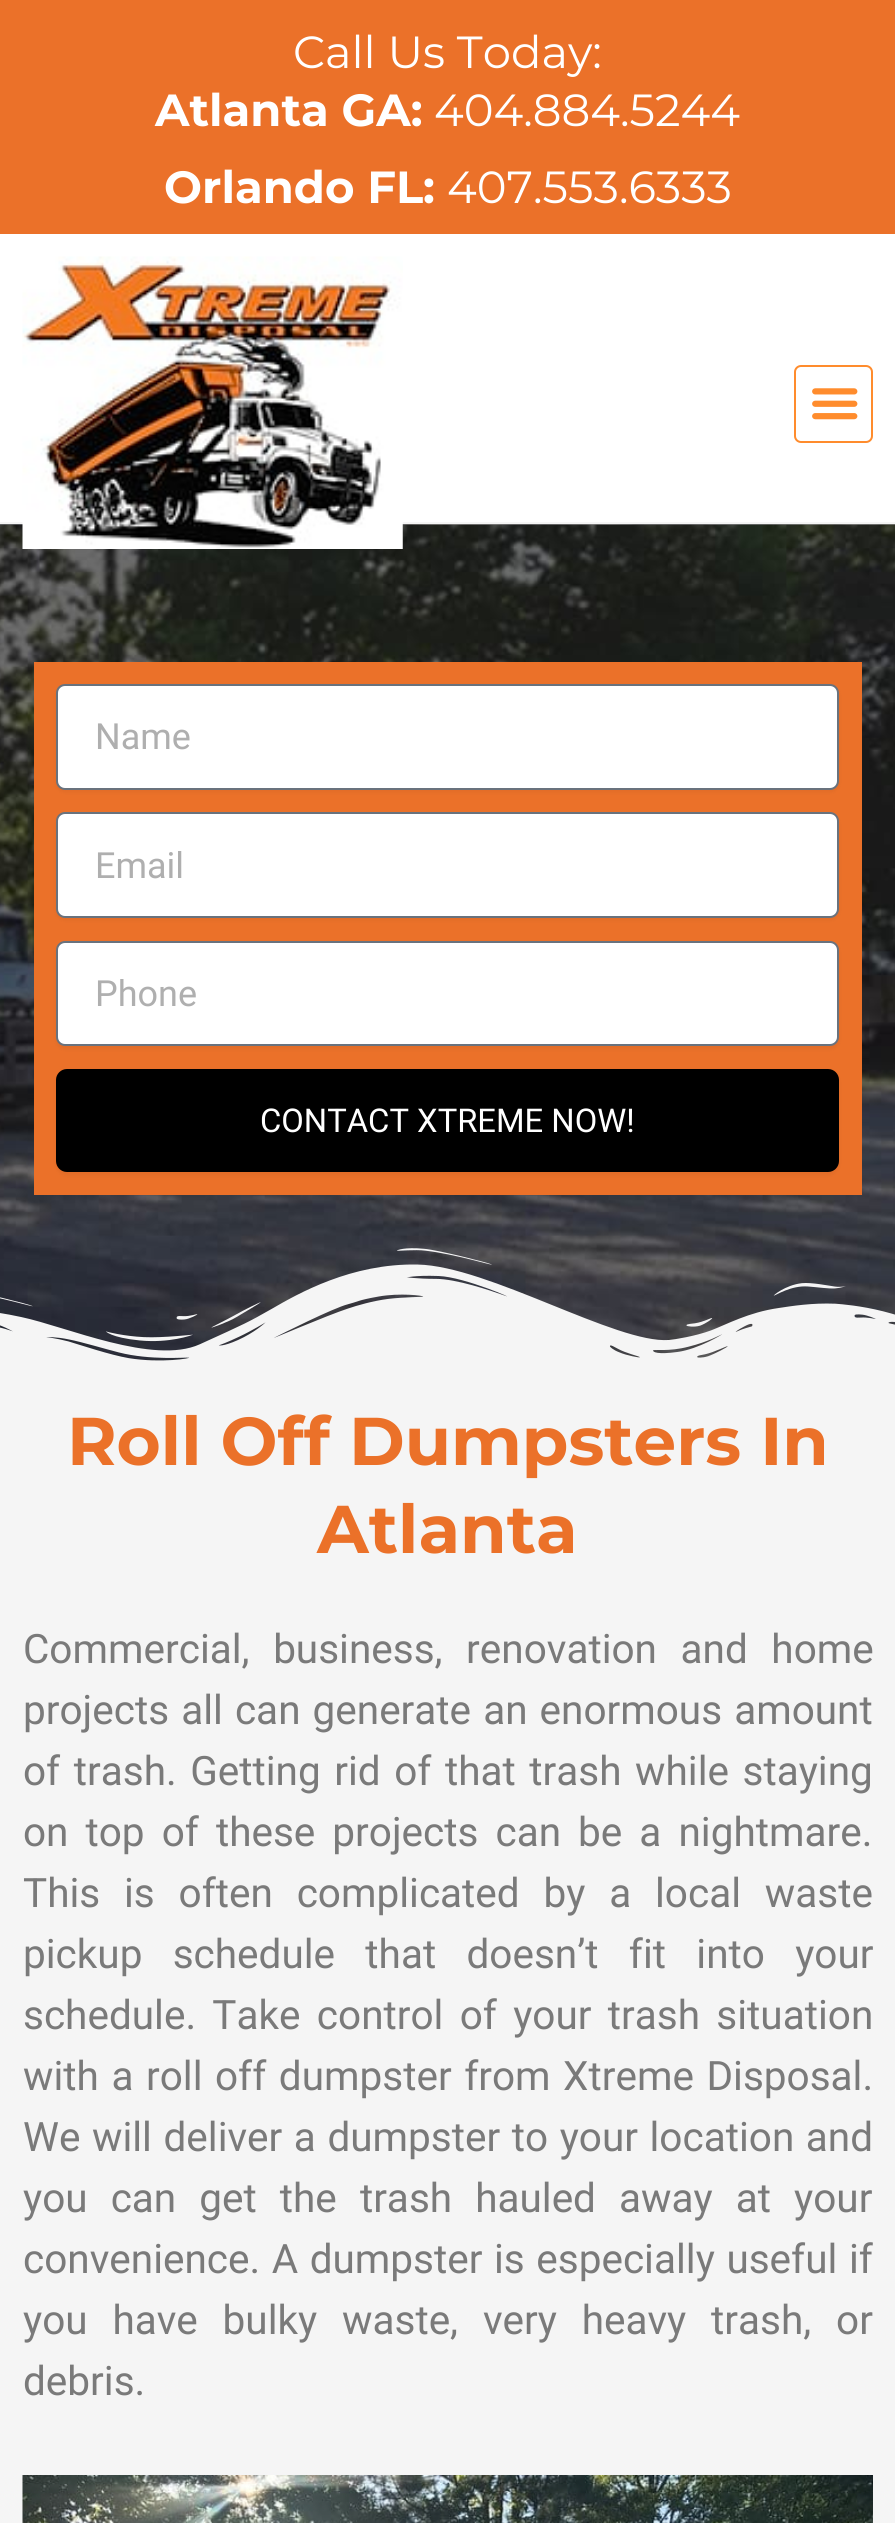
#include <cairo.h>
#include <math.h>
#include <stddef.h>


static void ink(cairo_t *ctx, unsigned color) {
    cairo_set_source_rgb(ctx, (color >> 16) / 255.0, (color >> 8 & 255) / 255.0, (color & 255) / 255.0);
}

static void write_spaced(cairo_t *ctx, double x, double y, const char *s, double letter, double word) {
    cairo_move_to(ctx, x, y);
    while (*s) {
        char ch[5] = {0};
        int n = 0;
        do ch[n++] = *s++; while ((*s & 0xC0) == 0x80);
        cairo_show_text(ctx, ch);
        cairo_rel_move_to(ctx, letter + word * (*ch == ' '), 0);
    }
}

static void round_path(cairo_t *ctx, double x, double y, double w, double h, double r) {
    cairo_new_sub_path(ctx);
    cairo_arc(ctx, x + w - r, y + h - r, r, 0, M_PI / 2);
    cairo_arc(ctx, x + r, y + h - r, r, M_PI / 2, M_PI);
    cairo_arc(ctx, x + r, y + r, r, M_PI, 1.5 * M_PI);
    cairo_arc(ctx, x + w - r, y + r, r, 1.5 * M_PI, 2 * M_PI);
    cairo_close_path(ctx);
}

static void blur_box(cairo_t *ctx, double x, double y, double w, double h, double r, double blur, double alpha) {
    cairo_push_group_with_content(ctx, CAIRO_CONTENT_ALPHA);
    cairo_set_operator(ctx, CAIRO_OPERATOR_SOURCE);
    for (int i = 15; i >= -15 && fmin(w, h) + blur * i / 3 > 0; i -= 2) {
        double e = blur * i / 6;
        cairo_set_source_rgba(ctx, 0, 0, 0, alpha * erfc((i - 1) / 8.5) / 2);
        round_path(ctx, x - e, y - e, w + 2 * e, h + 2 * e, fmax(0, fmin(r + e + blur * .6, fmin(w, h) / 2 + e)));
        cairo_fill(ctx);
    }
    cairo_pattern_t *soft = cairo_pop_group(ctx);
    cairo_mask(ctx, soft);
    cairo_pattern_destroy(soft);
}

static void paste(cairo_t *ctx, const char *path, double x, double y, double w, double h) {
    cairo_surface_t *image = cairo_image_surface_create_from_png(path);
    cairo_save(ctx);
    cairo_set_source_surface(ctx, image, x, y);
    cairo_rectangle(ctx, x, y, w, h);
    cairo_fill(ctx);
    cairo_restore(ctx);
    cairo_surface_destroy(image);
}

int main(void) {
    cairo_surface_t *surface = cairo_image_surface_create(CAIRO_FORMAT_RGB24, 895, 2523);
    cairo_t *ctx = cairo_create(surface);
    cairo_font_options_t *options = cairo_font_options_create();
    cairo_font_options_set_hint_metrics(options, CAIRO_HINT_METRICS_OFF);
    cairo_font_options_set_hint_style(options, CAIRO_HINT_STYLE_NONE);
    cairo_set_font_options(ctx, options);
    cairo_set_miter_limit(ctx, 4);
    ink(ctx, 0xF5F5F5);
    cairo_paint(ctx);
    ink(ctx, 0xEB7129);
    cairo_rectangle(ctx, 0, 0, 895, 234);
    cairo_fill(ctx);
    cairo_select_font_face(ctx, "Montserrat", CAIRO_FONT_SLANT_NORMAL, CAIRO_FONT_WEIGHT_NORMAL);
    cairo_set_font_size(ctx, 45);
    ink(ctx, 0xFFFFFF);
    cairo_move_to(ctx, 293, 68);
    cairo_show_text(ctx, "Call Us Today:");
    cairo_select_font_face(ctx, "Montserrat", CAIRO_FONT_SLANT_NORMAL, CAIRO_FONT_WEIGHT_BOLD);
    cairo_move_to(ctx, 155, 126);
    cairo_show_text(ctx, "Atlanta GA:");
    cairo_select_font_face(ctx, "Montserrat", CAIRO_FONT_SLANT_NORMAL, CAIRO_FONT_WEIGHT_NORMAL);
    cairo_move_to(ctx, 434, 126);
    cairo_show_text(ctx, "404.884.5244");
    cairo_select_font_face(ctx, "Montserrat", CAIRO_FONT_SLANT_NORMAL, CAIRO_FONT_WEIGHT_BOLD);
    cairo_move_to(ctx, 164, 203);
    cairo_show_text(ctx, "Orlando FL:");
    cairo_select_font_face(ctx, "Montserrat", CAIRO_FONT_SLANT_NORMAL, CAIRO_FONT_WEIGHT_NORMAL);
    cairo_move_to(ctx, 447, 203);
    cairo_show_text(ctx, "407.553.6333");
    cairo_rectangle(ctx, 0, 234, 895, 288);
    cairo_fill(ctx);
    paste(ctx, "media/3.png", 0, 524, 895, 837);
    paste(ctx, "media/1.png", 22, 256, 381, 293);
    round_path(ctx, 795, 366, 77, 76, 6);
    ink(ctx, 0xFF8C2D);
    cairo_stroke(ctx);
    paste(ctx, "media/2.png", 812, 388, 46, 32);
    ink(ctx, 0xEB7129);
    cairo_rectangle(ctx, 34, 662, 828, 533);
    cairo_fill(ctx);
    ink(ctx, 0x000000);
    blur_box(ctx, 56, 686, 783, 106, 9, 2, 0.05);
    ink(ctx, 0xFFFFFF);
    round_path(ctx, 57, 685, 781, 104, 8);
    cairo_fill_preserve(ctx);
    ink(ctx, 0x69727D);
    cairo_stroke(ctx);
    cairo_select_font_face(ctx, "Roboto", CAIRO_FONT_SLANT_NORMAL, CAIRO_FONT_WEIGHT_NORMAL);
    cairo_set_font_size(ctx, 36);
    ink(ctx, 0xAFAFAF);
    cairo_move_to(ctx, 95, 749);
    cairo_show_text(ctx, "Name");
    ink(ctx, 0x000000);
    blur_box(ctx, 56, 815, 783, 105, 9, 2, 0.05);
    ink(ctx, 0xFFFFFF);
    round_path(ctx, 57, 813, 781, 104, 8);
    cairo_fill_preserve(ctx);
    ink(ctx, 0x69727D);
    cairo_stroke(ctx);
    ink(ctx, 0xAFAFAF);
    cairo_move_to(ctx, 95, 878);
    cairo_show_text(ctx, "Email");
    ink(ctx, 0x000000);
    blur_box(ctx, 56, 943, 783, 106, 9, 2, 0.05);
    ink(ctx, 0xFFFFFF);
    round_path(ctx, 57, 942, 781, 103, 8);
    cairo_fill_preserve(ctx);
    ink(ctx, 0x69727D);
    cairo_stroke(ctx);
    ink(ctx, 0xAFAFAF);
    cairo_move_to(ctx, 95, 1006);
    cairo_show_text(ctx, "Phone");
    ink(ctx, 0x000000);
    blur_box(ctx, 56, 1071, 783, 104, 11, 2, 0.05);
    ink(ctx, 0x000000);
    round_path(ctx, 56, 1069, 783, 103, 11);
    cairo_fill(ctx);
    cairo_set_font_size(ctx, 32.75);
    ink(ctx, 0xFFFFFF);
    cairo_move_to(ctx, 260, 1132);
    cairo_show_text(ctx, "CONTACT XTREME NOW!");
    paste(ctx, "media/4.png", 0, 1248, 895, 127);
    cairo_select_font_face(ctx, "Montserrat", CAIRO_FONT_SLANT_NORMAL, CAIRO_FONT_WEIGHT_BOLD);
    cairo_set_font_size(ctx, 67.5);
    ink(ctx, 0xEB7129);
    cairo_move_to(ctx, 67, 1465);
    cairo_show_text(ctx, "Roll Off Dumpsters In");
    cairo_move_to(ctx, 317, 1553);
    cairo_show_text(ctx, "Atlanta");
    cairo_select_font_face(ctx, "Roboto", CAIRO_FONT_SLANT_NORMAL, CAIRO_FONT_WEIGHT_NORMAL);
    cairo_set_font_size(ctx, 40.5);
    ink(ctx, 0x7A7A7A);
    write_spaced(ctx, 23, 1663, "Commercial, business, renovation and home", 0, 13.5);
    write_spaced(ctx, 23, 1724, "projects all can generate an enormous amount", 0, 2);
    write_spaced(ctx, 23, 1785, "of trash. Getting rid of that trash while staying", 0, 3.5);
    write_spaced(ctx, 23, 1846, "on top of these projects can be a nightmare.", 0, 7);
    write_spaced(ctx, 23, 1907, "This is often complicated by a local waste", 0, 13.75);
    write_spaced(ctx, 23, 1968, "pickup schedule that doesn’t fit into your", 0, 20.25);
    write_spaced(ctx, 23, 2029, "schedule. Take control of your trash situation", 0, 6.25);
    write_spaced(ctx, 23, 2090, "with a roll off dumpster from Xtreme Disposal.", 0, 2.5);
    write_spaced(ctx, 23, 2151, "We will deliver a dumpster to your location and", 0, 1.5);
    write_spaced(ctx, 23, 2212, "you can get the trash hauled away at your", 0, 13);
    write_spaced(ctx, 23, 2273, "convenience. A dumpster is especially useful if", 0, 1.5);
    write_spaced(ctx, 23, 2334, "you have bulky waste, very heavy trash, or", 0, 14.75);
    cairo_move_to(ctx, 23, 2395);
    cairo_show_text(ctx, "debris.");
    paste(ctx, "media/5.png", 22, 2475, 851, 48);
    cairo_surface_write_to_png(surface, "image.png");
    cairo_font_options_destroy(options);
    cairo_destroy(ctx);
    cairo_surface_destroy(surface);
    return 0;
}
